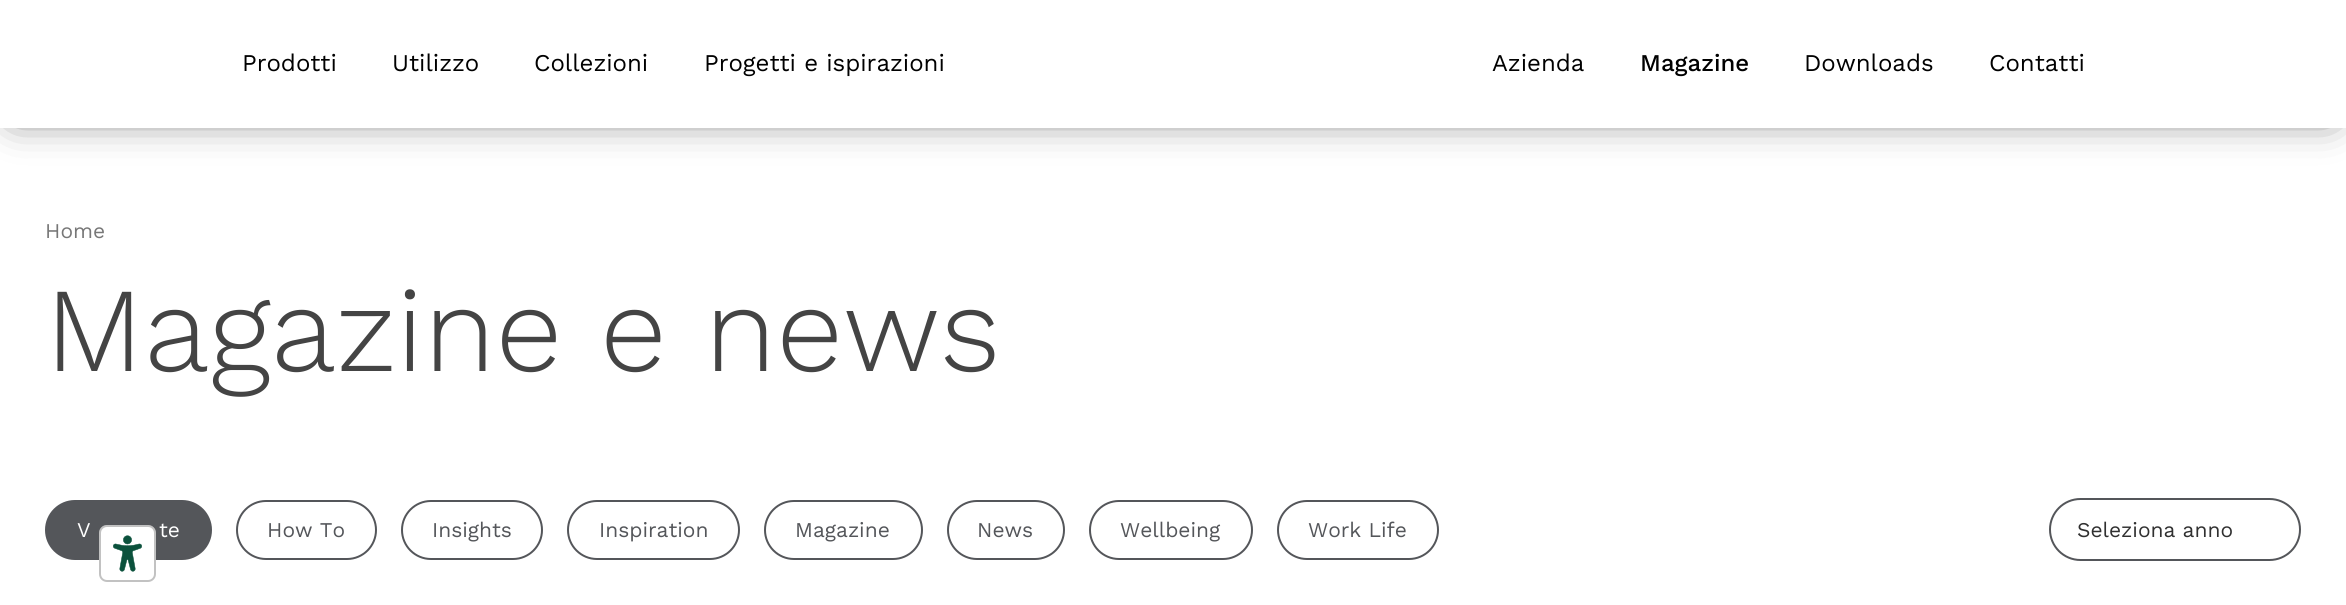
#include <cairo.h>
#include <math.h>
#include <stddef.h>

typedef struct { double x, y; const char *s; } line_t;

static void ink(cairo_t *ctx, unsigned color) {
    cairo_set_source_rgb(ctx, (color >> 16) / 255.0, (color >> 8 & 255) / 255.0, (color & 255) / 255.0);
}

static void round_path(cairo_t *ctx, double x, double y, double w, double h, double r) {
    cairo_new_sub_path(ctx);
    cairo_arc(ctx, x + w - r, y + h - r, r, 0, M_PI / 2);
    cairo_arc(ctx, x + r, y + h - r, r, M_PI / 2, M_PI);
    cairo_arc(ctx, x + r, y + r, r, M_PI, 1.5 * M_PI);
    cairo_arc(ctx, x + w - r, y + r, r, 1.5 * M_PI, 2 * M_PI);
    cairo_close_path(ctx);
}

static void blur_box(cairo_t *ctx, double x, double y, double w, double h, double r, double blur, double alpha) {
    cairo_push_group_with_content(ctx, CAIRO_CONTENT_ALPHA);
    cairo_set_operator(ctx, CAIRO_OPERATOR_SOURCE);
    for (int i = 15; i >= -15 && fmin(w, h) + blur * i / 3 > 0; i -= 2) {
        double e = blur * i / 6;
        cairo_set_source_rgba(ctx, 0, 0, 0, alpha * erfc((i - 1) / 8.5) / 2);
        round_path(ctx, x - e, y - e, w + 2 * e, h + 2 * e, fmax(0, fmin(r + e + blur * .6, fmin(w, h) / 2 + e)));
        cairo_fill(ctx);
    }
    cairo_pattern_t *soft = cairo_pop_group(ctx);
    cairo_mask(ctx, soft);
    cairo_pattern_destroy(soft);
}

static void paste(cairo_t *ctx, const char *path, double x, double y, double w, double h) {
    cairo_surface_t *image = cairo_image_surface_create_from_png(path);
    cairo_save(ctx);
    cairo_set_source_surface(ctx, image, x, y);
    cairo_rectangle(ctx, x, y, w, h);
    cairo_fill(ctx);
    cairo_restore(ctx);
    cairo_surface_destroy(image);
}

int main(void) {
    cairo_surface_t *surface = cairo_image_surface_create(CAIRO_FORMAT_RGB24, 2346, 605);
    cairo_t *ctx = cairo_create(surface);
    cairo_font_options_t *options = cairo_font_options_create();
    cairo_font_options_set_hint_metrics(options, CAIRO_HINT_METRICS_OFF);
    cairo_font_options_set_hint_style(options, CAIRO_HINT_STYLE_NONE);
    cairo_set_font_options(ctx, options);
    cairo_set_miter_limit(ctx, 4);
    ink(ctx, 0xFFFFFF);
    cairo_paint(ctx);
    ink(ctx, 0x000000);
    blur_box(ctx, 15, 15, 2316, 98, 0, 21, 0.75);
    ink(ctx, 0xFFFFFF);
    cairo_rectangle(ctx, 0, 0, 2346, 128);
    cairo_fill(ctx);
    cairo_select_font_face(ctx, "Work Sans", CAIRO_FONT_SLANT_NORMAL, CAIRO_FONT_WEIGHT_NORMAL);
    cairo_set_font_size(ctx, 24);
    ink(ctx, 0x000000);
    {
        static const line_t items[] = {
            {242, 71, "Prodotti"},
            {392, 71, "Utilizzo"},
            {534, 71, "Collezioni"},
            {704, 71, "Progetti e ispirazioni"},
            {1492, 71, "Azienda"},
        };
        for (size_t i = 0; i < sizeof items / sizeof *items; i++) {
            cairo_move_to(ctx, items[i].x, items[i].y);
            cairo_show_text(ctx, items[i].s);
        }
    }
    cairo_select_font_face(ctx, "Work Sans Medium", CAIRO_FONT_SLANT_NORMAL, CAIRO_FONT_WEIGHT_NORMAL);
    cairo_move_to(ctx, 1640, 71);
    cairo_show_text(ctx, "Magazine");
    cairo_select_font_face(ctx, "Work Sans", CAIRO_FONT_SLANT_NORMAL, CAIRO_FONT_WEIGHT_NORMAL);
    cairo_move_to(ctx, 1804, 71);
    cairo_show_text(ctx, "Downloads");
    cairo_move_to(ctx, 1989, 71);
    cairo_show_text(ctx, "Contatti");
    cairo_set_font_size(ctx, 21);
    ink(ctx, 0x777777);
    cairo_move_to(ctx, 45, 238);
    cairo_show_text(ctx, "Home");
    cairo_select_font_face(ctx, "Work Sans Light", CAIRO_FONT_SLANT_NORMAL, CAIRO_FONT_WEIGHT_NORMAL);
    cairo_set_font_size(ctx, 120);
    ink(ctx, 0x444444);
    cairo_move_to(ctx, 45, 371);
    cairo_show_text(ctx, "Magazine e news");
    ink(ctx, 0x54565A);
    round_path(ctx, 46, 501, 165, 58, 29);
    cairo_fill_preserve(ctx);
    cairo_stroke(ctx);
    cairo_select_font_face(ctx, "Work Sans", CAIRO_FONT_SLANT_NORMAL, CAIRO_FONT_WEIGHT_NORMAL);
    cairo_set_font_size(ctx, 21);
    ink(ctx, 0xFFFFFF);
    cairo_move_to(ctx, 77, 537);
    cairo_show_text(ctx, "V");
    cairo_move_to(ctx, 159, 537);
    cairo_show_text(ctx, "te");
    round_path(ctx, 237, 501, 139, 58, 29);
    ink(ctx, 0x54565A);
    cairo_stroke(ctx);
    cairo_move_to(ctx, 267, 537);
    cairo_show_text(ctx, "How To");
    round_path(ctx, 402, 501, 140, 58, 29);
    cairo_stroke(ctx);
    cairo_move_to(ctx, 432, 537);
    cairo_show_text(ctx, "Insights");
    round_path(ctx, 568, 501, 171, 58, 29);
    cairo_stroke(ctx);
    cairo_move_to(ctx, 599, 537);
    cairo_show_text(ctx, "Inspiration");
    round_path(ctx, 765, 501, 157, 58, 29);
    cairo_stroke(ctx);
    cairo_move_to(ctx, 795, 537);
    cairo_show_text(ctx, "Magazine");
    round_path(ctx, 948, 501, 116, 58, 29);
    cairo_stroke(ctx);
    cairo_move_to(ctx, 977, 537);
    cairo_show_text(ctx, "News");
    round_path(ctx, 1090, 501, 162, 58, 29);
    cairo_stroke(ctx);
    cairo_move_to(ctx, 1120, 537);
    cairo_show_text(ctx, "Wellbeing");
    round_path(ctx, 1278, 501, 160, 58, 29);
    cairo_stroke(ctx);
    cairo_move_to(ctx, 1308, 537);
    cairo_show_text(ctx, "Work Life");
    round_path(ctx, 2050, 499, 250, 61, 30.5);
    cairo_stroke(ctx);
    ink(ctx, 0x303030);
    cairo_move_to(ctx, 2077, 537);
    cairo_show_text(ctx, "Seleziona anno");
    ink(ctx, 0xFFFFFF);
    round_path(ctx, 99, 525, 57, 57, 8);
    cairo_fill(ctx);
    paste(ctx, "media/1.png", 113, 535, 29, 37);
    round_path(ctx, 100, 526, 55, 55, 7);
    cairo_set_source_rgba(ctx, 0, 0, 0, 0.24);
    cairo_stroke(ctx);
    cairo_surface_write_to_png(surface, "image.png");
    cairo_font_options_destroy(options);
    cairo_destroy(ctx);
    cairo_surface_destroy(surface);
    return 0;
}
